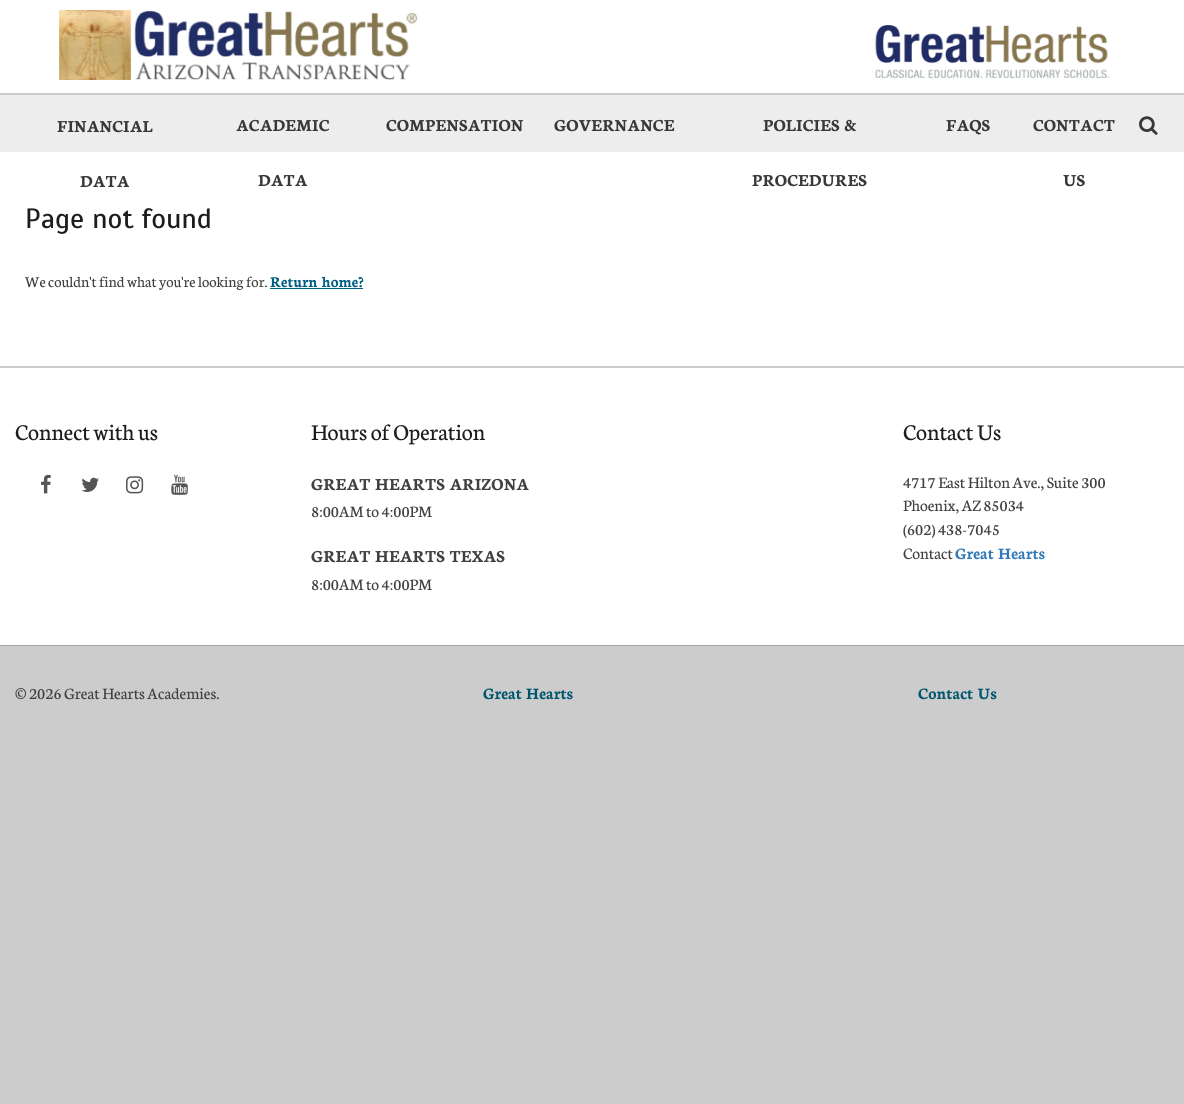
#include <cairo.h>
#include <math.h>
#include <stddef.h>

typedef struct { double x, y; const char *s; } line_t;

static void ink(cairo_t *ctx, unsigned color) {
    cairo_set_source_rgb(ctx, (color >> 16) / 255.0, (color >> 8 & 255) / 255.0, (color & 255) / 255.0);
}

static void paste(cairo_t *ctx, const char *path, double x, double y, double w, double h) {
    cairo_surface_t *image = cairo_image_surface_create_from_png(path);
    cairo_save(ctx);
    cairo_set_source_surface(ctx, image, x, y);
    cairo_rectangle(ctx, x, y, w, h);
    cairo_fill(ctx);
    cairo_restore(ctx);
    cairo_surface_destroy(image);
}

int main(void) {
    cairo_surface_t *surface = cairo_image_surface_create(CAIRO_FORMAT_RGB24, 1184, 1104);
    cairo_t *ctx = cairo_create(surface);
    cairo_font_options_t *options = cairo_font_options_create();
    cairo_font_options_set_hint_metrics(options, CAIRO_HINT_METRICS_OFF);
    cairo_font_options_set_hint_style(options, CAIRO_HINT_STYLE_NONE);
    cairo_set_font_options(ctx, options);
    cairo_set_miter_limit(ctx, 4);
    ink(ctx, 0xCCCCCC);
    cairo_paint(ctx);
    ink(ctx, 0xFFFFFF);
    cairo_rectangle(ctx, 0, 0, 1184, 93);
    cairo_fill(ctx);
    paste(ctx, "media/1.png", 59, 10, 359, 70);
    paste(ctx, "media/2.png", 875, 25, 235, 53);
    ink(ctx, 0xEDEDED);
    cairo_rectangle(ctx, 0, 95, 1184, 57);
    cairo_fill(ctx);
    cairo_select_font_face(ctx, "Neuton", CAIRO_FONT_SLANT_NORMAL, CAIRO_FONT_WEIGHT_BOLD);
    cairo_set_font_size(ctx, 18);
    ink(ctx, 0x383838);
    cairo_move_to(ctx, 57, 132);
    cairo_show_text(ctx, "FINANCIAL");
    ink(ctx, 0xFFFFFF);
    cairo_rectangle(ctx, 0, 152, 1184, 214);
    cairo_fill(ctx);
    ink(ctx, 0x383838);
    {
        static const line_t items[] = {
            {80, 187, "DATA"},
            {236, 131, "ACADEMIC"},
            {258, 186, "DATA"},
            {386, 131, "COMPENSATION"},
            {554, 131, "GOVERNANCE"},
            {763, 131, "POLICIES &"},
            {752, 186, "PROCEDURES"},
            {946, 131, "FAQS"},
            {1033, 131, "CONTACT"},
            {1063, 186, "US"},
        };
        for (size_t i = 0; i < sizeof items / sizeof *items; i++) {
            cairo_move_to(ctx, items[i].x, items[i].y);
            cairo_show_text(ctx, items[i].s);
        }
    }
    paste(ctx, "media/3.png", 1139, 116, 19, 19);
    cairo_select_font_face(ctx, "Scada", CAIRO_FONT_SLANT_NORMAL, CAIRO_FONT_WEIGHT_NORMAL);
    cairo_set_font_size(ctx, 28);
    ink(ctx, 0x1D1D1D);
    cairo_move_to(ctx, 25, 228);
    cairo_show_text(ctx, "Page not found");
    cairo_select_font_face(ctx, "Neuton", CAIRO_FONT_SLANT_NORMAL, CAIRO_FONT_WEIGHT_NORMAL);
    cairo_set_font_size(ctx, 16);
    ink(ctx, 0x404040);
    cairo_move_to(ctx, 25, 287);
    cairo_show_text(ctx, "We couldn't find what you're looking for.");
    cairo_select_font_face(ctx, "Neuton", CAIRO_FONT_SLANT_NORMAL, CAIRO_FONT_WEIGHT_BOLD);
    ink(ctx, 0x005F82);
    cairo_move_to(ctx, 270, 287);
    cairo_show_text(ctx, "Return home?");
    cairo_rectangle(ctx, 270, 288, 93, 1);
    cairo_fill(ctx);
    ink(ctx, 0xFFFFFF);
    cairo_rectangle(ctx, 0, 368, 1184, 277);
    cairo_fill(ctx);
    cairo_select_font_face(ctx, "Neuton", CAIRO_FONT_SLANT_NORMAL, CAIRO_FONT_WEIGHT_NORMAL);
    cairo_set_font_size(ctx, 24);
    ink(ctx, 0x1D1D1D);
    cairo_move_to(ctx, 15, 440);
    cairo_show_text(ctx, "Connect with us");
    paste(ctx, "media/4.png", 41, 474, 10, 20);
    paste(ctx, "media/5.png", 81, 477, 18, 15);
    paste(ctx, "media/6.png", 126, 476, 18, 18);
    paste(ctx, "media/7.png", 171, 474, 17, 21);
    cairo_move_to(ctx, 311, 440);
    cairo_show_text(ctx, "Hours of Operation");
    cairo_select_font_face(ctx, "Neuton", CAIRO_FONT_SLANT_NORMAL, CAIRO_FONT_WEIGHT_BOLD);
    cairo_set_font_size(ctx, 18);
    ink(ctx, 0x404040);
    cairo_move_to(ctx, 311, 490);
    cairo_show_text(ctx, "GREAT HEARTS ARIZONA");
    cairo_select_font_face(ctx, "Neuton", CAIRO_FONT_SLANT_NORMAL, CAIRO_FONT_WEIGHT_NORMAL);
    cairo_set_font_size(ctx, 17);
    cairo_move_to(ctx, 311, 517);
    cairo_show_text(ctx, "8:00AM to 4:00PM");
    cairo_select_font_face(ctx, "Neuton", CAIRO_FONT_SLANT_NORMAL, CAIRO_FONT_WEIGHT_BOLD);
    cairo_set_font_size(ctx, 18);
    cairo_move_to(ctx, 311, 562);
    cairo_show_text(ctx, "GREAT HEARTS TEXAS");
    cairo_select_font_face(ctx, "Neuton", CAIRO_FONT_SLANT_NORMAL, CAIRO_FONT_WEIGHT_NORMAL);
    cairo_set_font_size(ctx, 17);
    cairo_move_to(ctx, 311, 590);
    cairo_show_text(ctx, "8:00AM to 4:00PM");
    cairo_set_font_size(ctx, 24);
    ink(ctx, 0x1D1D1D);
    cairo_move_to(ctx, 903, 440);
    cairo_show_text(ctx, "Contact Us");
    cairo_set_font_size(ctx, 17);
    ink(ctx, 0x404040);
    {
        static const line_t items[] = {
            {903, 488, "4717 East Hilton Ave., Suite 300"},
            {903, 511, "Phoenix, AZ 85034"},
            {903, 535, "(602) 438-7045"},
            {903, 559, "Contact"},
        };
        for (size_t i = 0; i < sizeof items / sizeof *items; i++) {
            cairo_move_to(ctx, items[i].x, items[i].y);
            cairo_show_text(ctx, items[i].s);
        }
    }
    cairo_select_font_face(ctx, "Neuton", CAIRO_FONT_SLANT_NORMAL, CAIRO_FONT_WEIGHT_BOLD);
    ink(ctx, 0x337AB7);
    cairo_move_to(ctx, 955, 559);
    cairo_show_text(ctx, "Great Hearts");
    ink(ctx, 0xA3A3A3);
    cairo_rectangle(ctx, 0, 645, 1184, 1);
    cairo_fill(ctx);
    cairo_select_font_face(ctx, "Neuton", CAIRO_FONT_SLANT_NORMAL, CAIRO_FONT_WEIGHT_NORMAL);
    ink(ctx, 0x404040);
    cairo_move_to(ctx, 15, 699);
    cairo_show_text(ctx, "© 2026 Great Hearts Academies.");
    cairo_select_font_face(ctx, "Neuton", CAIRO_FONT_SLANT_NORMAL, CAIRO_FONT_WEIGHT_BOLD);
    ink(ctx, 0x005670);
    cairo_move_to(ctx, 483, 699);
    cairo_show_text(ctx, "Great Hearts");
    cairo_move_to(ctx, 918, 699);
    cairo_show_text(ctx, "Contact Us");
    cairo_surface_write_to_png(surface, "image.png");
    cairo_font_options_destroy(options);
    cairo_destroy(ctx);
    cairo_surface_destroy(surface);
    return 0;
}
